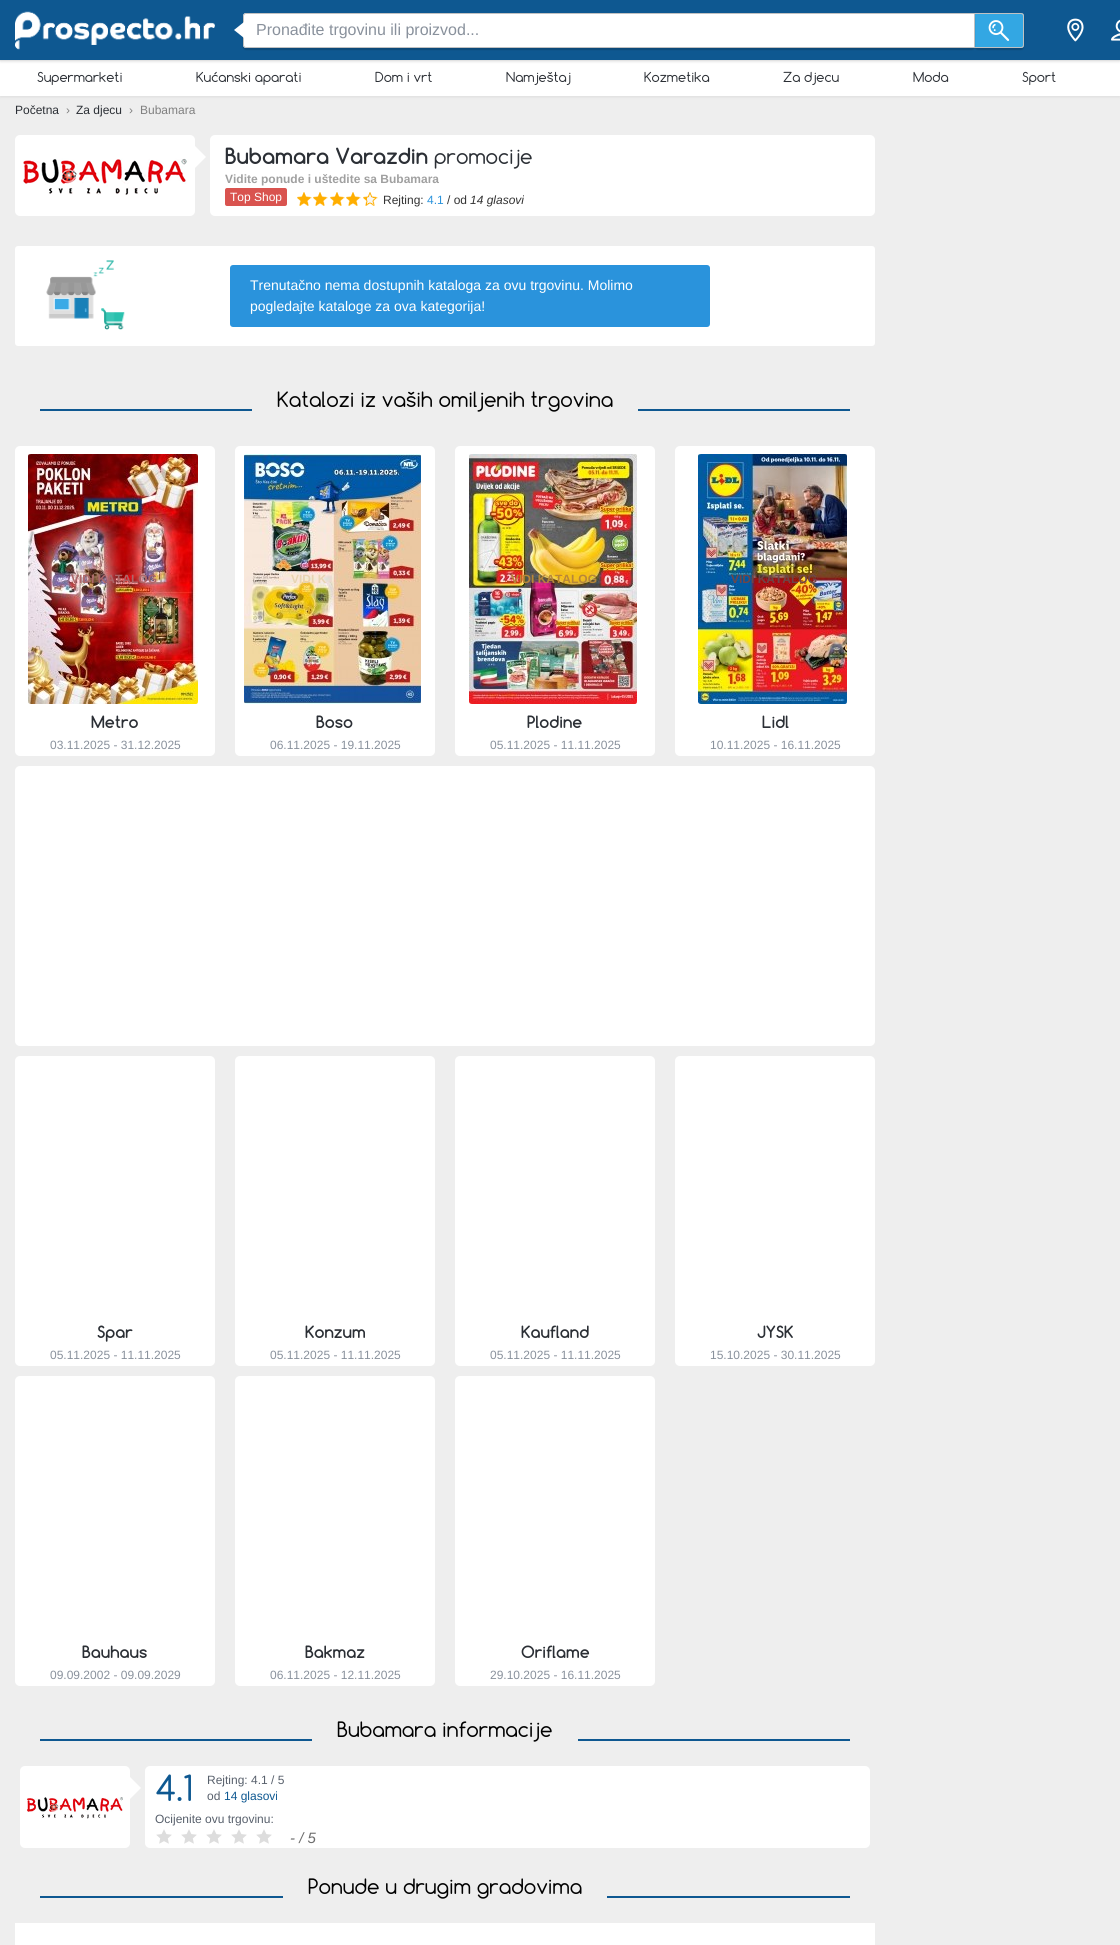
#include <cairo.h>
#include <math.h>
#include <stddef.h>

typedef struct { double x, y; const char *s; } line_t;

static void ink(cairo_t *ctx, unsigned color) {
    cairo_set_source_rgb(ctx, (color >> 16) / 255.0, (color >> 8 & 255) / 255.0, (color & 255) / 255.0);
}

static void round_path(cairo_t *ctx, double x, double y, double w, double h, double r) {
    cairo_new_sub_path(ctx);
    cairo_arc(ctx, x + w - r, y + h - r, r, 0, M_PI / 2);
    cairo_arc(ctx, x + r, y + h - r, r, M_PI / 2, M_PI);
    cairo_arc(ctx, x + r, y + r, r, M_PI, 1.5 * M_PI);
    cairo_arc(ctx, x + w - r, y + r, r, 1.5 * M_PI, 2 * M_PI);
    cairo_close_path(ctx);
}

static void blur_box(cairo_t *ctx, double x, double y, double w, double h, double r, double blur, double alpha) {
    cairo_push_group_with_content(ctx, CAIRO_CONTENT_ALPHA);
    cairo_set_operator(ctx, CAIRO_OPERATOR_SOURCE);
    for (int i = 15; i >= -15 && fmin(w, h) + blur * i / 3 > 0; i -= 2) {
        double e = blur * i / 6;
        cairo_set_source_rgba(ctx, 0, 0, 0, alpha * erfc((i - 1) / 8.5) / 2);
        round_path(ctx, x - e, y - e, w + 2 * e, h + 2 * e, fmax(0, fmin(r + e + blur * .6, fmin(w, h) / 2 + e)));
        cairo_fill(ctx);
    }
    cairo_pattern_t *soft = cairo_pop_group(ctx);
    cairo_mask(ctx, soft);
    cairo_pattern_destroy(soft);
}

static void paste(cairo_t *ctx, const char *path, double x, double y, double w, double h) {
    cairo_surface_t *image = cairo_image_surface_create_from_png(path);
    cairo_save(ctx);
    cairo_set_source_surface(ctx, image, x, y);
    cairo_rectangle(ctx, x, y, w, h);
    cairo_fill(ctx);
    cairo_restore(ctx);
    cairo_surface_destroy(image);
}

int main(void) {
    cairo_surface_t *surface = cairo_image_surface_create(CAIRO_FORMAT_RGB24, 1120, 1945);
    cairo_t *ctx = cairo_create(surface);
    cairo_font_options_t *options = cairo_font_options_create();
    cairo_font_options_set_hint_metrics(options, CAIRO_HINT_METRICS_OFF);
    cairo_font_options_set_hint_style(options, CAIRO_HINT_STYLE_NONE);
    cairo_set_font_options(ctx, options);
    cairo_set_miter_limit(ctx, 4);
    ink(ctx, 0xEEEEEE);
    cairo_paint(ctx);
    ink(ctx, 0x999999);
    blur_box(ctx, 0, 61, 1120, 36, 0, 1.5, 0.2);
    ink(ctx, 0xFFFFFF);
    cairo_rectangle(ctx, 0, 60, 1120, 36);
    cairo_fill(ctx);
    ink(ctx, 0x000000);
    blur_box(ctx, 0, 0, 1120, 60, 0, 2, 0.28);
    ink(ctx, 0x0E5891);
    cairo_rectangle(ctx, 0, 0, 1120, 60);
    cairo_fill(ctx);
    paste(ctx, "media/1.png", 15, 11, 200, 39);
    ink(ctx, 0x000000);
    blur_box(ctx, 975, 15, 49, 35, 3, 0.5, 0.17);
    ink(ctx, 0xFFFFFF);
    cairo_new_path(ctx);
    cairo_move_to(ctx, 246, 13);
    cairo_line_to(ctx, 975, 13);
    cairo_line_to(ctx, 975, 48);
    cairo_line_to(ctx, 246, 48);
    cairo_curve_to(ctx, 244.5, 48, 243, 46.5, 243, 45);
    cairo_line_to(ctx, 243, 16);
    cairo_curve_to(ctx, 243, 14.5, 244.5, 13, 246, 13);
    cairo_close_path(ctx);
    cairo_fill(ctx);
    ink(ctx, 0x33A7E3);
    cairo_new_path(ctx);
    cairo_move_to(ctx, 975, 13);
    cairo_line_to(ctx, 1021, 13);
    cairo_curve_to(ctx, 1022.5, 13, 1024, 14.5, 1024, 16);
    cairo_line_to(ctx, 1024, 45);
    cairo_curve_to(ctx, 1024, 46.5, 1022.5, 48, 1021, 48);
    cairo_line_to(ctx, 975, 48);
    cairo_close_path(ctx);
    cairo_fill(ctx);
    ink(ctx, 0xC1C1C1);
    cairo_set_fill_rule(ctx, CAIRO_FILL_RULE_EVEN_ODD);
    cairo_new_path(ctx);
    cairo_move_to(ctx, 975, 13);
    cairo_line_to(ctx, 1021, 13);
    cairo_curve_to(ctx, 1023, 13, 1024, 14, 1024, 16);
    cairo_line_to(ctx, 1024, 45);
    cairo_curve_to(ctx, 1024, 47, 1023, 48, 1021, 48);
    cairo_line_to(ctx, 975, 48);
    cairo_close_path(ctx);
    cairo_move_to(ctx, 975, 14);
    cairo_line_to(ctx, 1021, 14);
    cairo_curve_to(ctx, 1022, 14, 1023, 15, 1023, 16);
    cairo_line_to(ctx, 1023, 45);
    cairo_curve_to(ctx, 1023, 46, 1022, 47, 1021, 47);
    cairo_line_to(ctx, 975, 47);
    cairo_close_path(ctx);
    cairo_fill(ctx);
    cairo_save(ctx);
    cairo_new_path(ctx);
    cairo_move_to(ctx, 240, 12);
    cairo_line_to(ctx, 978, 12);
    cairo_line_to(ctx, 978, 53);
    cairo_line_to(ctx, 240, 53);
    cairo_close_path(ctx);
    cairo_move_to(ctx, 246, 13);
    cairo_line_to(ctx, 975, 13);
    cairo_line_to(ctx, 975, 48);
    cairo_line_to(ctx, 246, 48);
    cairo_curve_to(ctx, 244.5, 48, 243, 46.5, 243, 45);
    cairo_line_to(ctx, 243, 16);
    cairo_curve_to(ctx, 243, 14.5, 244.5, 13, 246, 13);
    cairo_close_path(ctx);
    cairo_clip(ctx);
    ink(ctx, 0x000000);
    blur_box(ctx, 243, 15, 732, 35, 3, 0.5, 0.17);
    cairo_restore(ctx);
    cairo_new_path(ctx);
    cairo_move_to(ctx, 246, 13.5);
    cairo_line_to(ctx, 974.5, 13.5);
    cairo_line_to(ctx, 974.5, 47.5);
    cairo_line_to(ctx, 246, 47.5);
    cairo_curve_to(ctx, 244.5, 47.5, 243.5, 46.5, 243.5, 45);
    cairo_line_to(ctx, 243.5, 16);
    cairo_curve_to(ctx, 243.5, 14.5, 244.5, 13.5, 246, 13.5);
    cairo_close_path(ctx);
    cairo_set_line_width(ctx, 1);
    cairo_stroke(ctx);
    ink(ctx, 0xFFFFFF);
    cairo_set_fill_rule(ctx, CAIRO_FILL_RULE_WINDING);
    cairo_new_path(ctx);
    cairo_move_to(ctx, 244, 22);
    cairo_line_to(ctx, 244, 38);
    cairo_line_to(ctx, 234, 30);
    cairo_close_path(ctx);
    cairo_fill(ctx);
    cairo_select_font_face(ctx, "Liberation Sans", CAIRO_FONT_SLANT_NORMAL, CAIRO_FONT_WEIGHT_NORMAL);
    cairo_set_font_size(ctx, 16);
    ink(ctx, 0x89919C);
    cairo_move_to(ctx, 256, 35);
    cairo_show_text(ctx, "Pronađite trgovinu ili proizvod...");
    paste(ctx, "media/2.png", 988, 20, 22, 21);
    paste(ctx, "media/3.png", 1067, 18, 17, 24);
    paste(ctx, "media/4.png", 1111, 19, 9, 22);
    cairo_select_font_face(ctx, "Comfortaa", CAIRO_FONT_SLANT_NORMAL, CAIRO_FONT_WEIGHT_NORMAL);
    cairo_set_font_size(ctx, 13);
    ink(ctx, 0x2B2F35);
    {
        static const line_t items[] = {
            {37, 82, "Supermarketi"},
            {196, 82, "Kućanski aparati"},
            {375, 82, "Dom i vrt"},
            {506, 82, "Namještaj"},
            {644, 82, "Kozmetika"},
            {783, 82, "Za djecu"},
            {913, 82, "Moda"},
            {1022, 82, "Sport"},
        };
        for (size_t i = 0; i < sizeof items / sizeof *items; i++) {
            cairo_move_to(ctx, items[i].x, items[i].y);
            cairo_show_text(ctx, items[i].s);
        }
    }
    cairo_select_font_face(ctx, "Liberation Sans", CAIRO_FONT_SLANT_NORMAL, CAIRO_FONT_WEIGHT_NORMAL);
    cairo_set_font_size(ctx, 12);
    cairo_move_to(ctx, 15, 114);
    cairo_show_text(ctx, "Početna");
    ink(ctx, 0x808080);
    cairo_move_to(ctx, 66, 114);
    cairo_show_text(ctx, "›");
    ink(ctx, 0x2B2F35);
    cairo_move_to(ctx, 76, 114);
    cairo_show_text(ctx, "Za djecu");
    ink(ctx, 0x808080);
    cairo_move_to(ctx, 129, 114);
    cairo_show_text(ctx, "›");
    cairo_move_to(ctx, 140, 114);
    cairo_show_text(ctx, "Bubamara");
    ink(ctx, 0xFFFFFF);
    round_path(ctx, 15, 135, 180, 81, 5);
    cairo_fill(ctx);
    paste(ctx, "media/5.png", 23, 158, 164, 37);
    cairo_new_path(ctx);
    cairo_move_to(ctx, 194, 169);
    cairo_line_to(ctx, 194, 145);
    cairo_line_to(ctx, 206, 157);
    cairo_close_path(ctx);
    cairo_fill(ctx);
    round_path(ctx, 210, 135, 665, 81, 5);
    cairo_fill(ctx);
    cairo_select_font_face(ctx, "Comfortaa", CAIRO_FONT_SLANT_NORMAL, CAIRO_FONT_WEIGHT_BOLD);
    cairo_set_font_size(ctx, 21);
    ink(ctx, 0x2B2F35);
    cairo_move_to(ctx, 225, 164);
    cairo_show_text(ctx, "Bubamara Varazdin");
    cairo_select_font_face(ctx, "Comfortaa", CAIRO_FONT_SLANT_NORMAL, CAIRO_FONT_WEIGHT_NORMAL);
    cairo_set_font_size(ctx, 20);
    cairo_move_to(ctx, 434, 164);
    cairo_show_text(ctx, "promocije");
    cairo_select_font_face(ctx, "Liberation Sans", CAIRO_FONT_SLANT_NORMAL, CAIRO_FONT_WEIGHT_BOLD);
    cairo_set_font_size(ctx, 12);
    ink(ctx, 0xA0A0A0);
    cairo_move_to(ctx, 225, 183);
    cairo_show_text(ctx, "Vidite ponude i uštedite sa Bubamara");
    ink(ctx, 0xD9534F);
    round_path(ctx, 225, 188, 62, 18, 2);
    cairo_fill(ctx);
    cairo_select_font_face(ctx, "Liberation Sans", CAIRO_FONT_SLANT_NORMAL, CAIRO_FONT_WEIGHT_NORMAL);
    ink(ctx, 0xFFFFFF);
    cairo_move_to(ctx, 230, 201);
    cairo_show_text(ctx, "Top Shop");
    paste(ctx, "media/6.png", 297, 192, 81, 14);
    ink(ctx, 0x333333);
    cairo_move_to(ctx, 383, 204);
    cairo_show_text(ctx, "Rejting:");
    ink(ctx, 0x2A93DC);
    cairo_move_to(ctx, 427, 204);
    cairo_show_text(ctx, "4.1");
    ink(ctx, 0x333333);
    cairo_move_to(ctx, 447, 204);
    cairo_show_text(ctx, "/ od");
    cairo_select_font_face(ctx, "Liberation Sans", CAIRO_FONT_SLANT_ITALIC, CAIRO_FONT_WEIGHT_NORMAL);
    cairo_move_to(ctx, 470, 204);
    cairo_show_text(ctx, "14 glasovi");
    ink(ctx, 0xFFFFFF);
    round_path(ctx, 15, 246, 860, 100, 3);
    cairo_fill(ctx);
    paste(ctx, "media/7.png", 46, 260, 79, 70);
    ink(ctx, 0x2A93DC);
    round_path(ctx, 230, 265, 480, 62, 3);
    cairo_fill(ctx);
    cairo_select_font_face(ctx, "Liberation Sans", CAIRO_FONT_SLANT_NORMAL, CAIRO_FONT_WEIGHT_NORMAL);
    cairo_set_font_size(ctx, 14);
    ink(ctx, 0xFFFFFF);
    cairo_move_to(ctx, 250, 290);
    cairo_show_text(ctx, "Trenutačno nema dostupnih kataloga za ovu trgovinu. Molimo");
    cairo_move_to(ctx, 250, 311);
    cairo_show_text(ctx, "pogledajte kataloge za ova kategorija!");
    ink(ctx, 0x0E5891);
    cairo_rectangle(ctx, 40, 409, 810, 2);
    cairo_fill(ctx);
    ink(ctx, 0xEEEEEE);
    cairo_rectangle(ctx, 252, 409, 386, 2);
    cairo_fill(ctx);
    cairo_select_font_face(ctx, "Comfortaa", CAIRO_FONT_SLANT_NORMAL, CAIRO_FONT_WEIGHT_NORMAL);
    cairo_set_font_size(ctx, 20);
    ink(ctx, 0x000000);
    cairo_move_to(ctx, 277, 407);
    cairo_show_text(ctx, "Katalozi iz vaših omiljenih trgovina");
    ink(ctx, 0xFFFFFF);
    round_path(ctx, 15, 446, 200, 310, 5);
    cairo_fill(ctx);
    paste(ctx, "media/8.png", 28, 454, 170, 250);
    cairo_select_font_face(ctx, "Liberation Sans", CAIRO_FONT_SLANT_NORMAL, CAIRO_FONT_WEIGHT_BOLD);
    cairo_set_font_size(ctx, 12);
    ink(ctx, 0xAD6769);
    cairo_move_to(ctx, 71, 583);
    cairo_show_text(ctx, "VIDI KATALOG");
    cairo_select_font_face(ctx, "Comfortaa", CAIRO_FONT_SLANT_NORMAL, CAIRO_FONT_WEIGHT_BOLD);
    cairo_set_font_size(ctx, 16);
    ink(ctx, 0x2B2F35);
    cairo_move_to(ctx, 91, 728);
    cairo_show_text(ctx, "Metro");
    cairo_select_font_face(ctx, "Liberation Sans", CAIRO_FONT_SLANT_NORMAL, CAIRO_FONT_WEIGHT_NORMAL);
    cairo_set_font_size(ctx, 12);
    ink(ctx, 0x89919C);
    cairo_move_to(ctx, 50, 749);
    cairo_show_text(ctx, "03.11.2025 - 31.12.2025");
    ink(ctx, 0xFFFFFF);
    round_path(ctx, 235, 446, 200, 310, 5);
    cairo_fill(ctx);
    paste(ctx, "media/9.png", 244, 454, 177, 250);
    cairo_select_font_face(ctx, "Liberation Sans", CAIRO_FONT_SLANT_NORMAL, CAIRO_FONT_WEIGHT_BOLD);
    ink(ctx, 0xE8D4B2);
    cairo_move_to(ctx, 291, 583);
    cairo_show_text(ctx, "VIDI K");
    cairo_select_font_face(ctx, "Comfortaa", CAIRO_FONT_SLANT_NORMAL, CAIRO_FONT_WEIGHT_BOLD);
    cairo_set_font_size(ctx, 16);
    ink(ctx, 0x2B2F35);
    cairo_move_to(ctx, 316, 728);
    cairo_show_text(ctx, "Boso");
    cairo_select_font_face(ctx, "Liberation Sans", CAIRO_FONT_SLANT_NORMAL, CAIRO_FONT_WEIGHT_NORMAL);
    cairo_set_font_size(ctx, 12);
    ink(ctx, 0x89919C);
    cairo_move_to(ctx, 270, 749);
    cairo_show_text(ctx, "06.11.2025 - 19.11.2025");
    ink(ctx, 0xFFFFFF);
    round_path(ctx, 455, 446, 200, 310, 5);
    cairo_fill(ctx);
    paste(ctx, "media/10.png", 469, 454, 168, 250);
    cairo_select_font_face(ctx, "Liberation Sans", CAIRO_FONT_SLANT_NORMAL, CAIRO_FONT_WEIGHT_BOLD);
    ink(ctx, 0xB88738);
    cairo_move_to(ctx, 511, 583);
    cairo_show_text(ctx, "VIDI KATALOG");
    cairo_select_font_face(ctx, "Comfortaa", CAIRO_FONT_SLANT_NORMAL, CAIRO_FONT_WEIGHT_BOLD);
    cairo_set_font_size(ctx, 16);
    ink(ctx, 0x2B2F35);
    cairo_move_to(ctx, 527, 728);
    cairo_show_text(ctx, "Plodine");
    cairo_select_font_face(ctx, "Liberation Sans", CAIRO_FONT_SLANT_NORMAL, CAIRO_FONT_WEIGHT_NORMAL);
    cairo_set_font_size(ctx, 12);
    ink(ctx, 0x89919C);
    cairo_move_to(ctx, 490, 749);
    cairo_show_text(ctx, "05.11.2025 - 11.11.2025");
    ink(ctx, 0xFFFFFF);
    round_path(ctx, 675, 446, 200, 310, 5);
    cairo_fill(ctx);
    paste(ctx, "media/11.png", 698, 454, 149, 250);
    cairo_select_font_face(ctx, "Liberation Sans", CAIRO_FONT_SLANT_NORMAL, CAIRO_FONT_WEIGHT_BOLD);
    ink(ctx, 0x6D4648);
    cairo_move_to(ctx, 731, 583);
    cairo_show_text(ctx, "VIDI KATALOG");
    cairo_select_font_face(ctx, "Comfortaa", CAIRO_FONT_SLANT_NORMAL, CAIRO_FONT_WEIGHT_BOLD);
    cairo_set_font_size(ctx, 16);
    ink(ctx, 0x2B2F35);
    cairo_move_to(ctx, 762, 728);
    cairo_show_text(ctx, "Lidl");
    cairo_select_font_face(ctx, "Liberation Sans", CAIRO_FONT_SLANT_NORMAL, CAIRO_FONT_WEIGHT_NORMAL);
    cairo_set_font_size(ctx, 12);
    ink(ctx, 0x89919C);
    cairo_move_to(ctx, 710, 749);
    cairo_show_text(ctx, "10.11.2025 - 16.11.2025");
    ink(ctx, 0xFFFFFF);
    round_path(ctx, 15, 766, 860, 280, 5);
    cairo_fill(ctx);
    round_path(ctx, 15, 1056, 200, 310, 5);
    cairo_fill(ctx);
    cairo_select_font_face(ctx, "Comfortaa", CAIRO_FONT_SLANT_NORMAL, CAIRO_FONT_WEIGHT_BOLD);
    cairo_set_font_size(ctx, 16);
    ink(ctx, 0x2B2F35);
    cairo_move_to(ctx, 97, 1338);
    cairo_show_text(ctx, "Spar");
    cairo_select_font_face(ctx, "Liberation Sans", CAIRO_FONT_SLANT_NORMAL, CAIRO_FONT_WEIGHT_NORMAL);
    cairo_set_font_size(ctx, 12);
    ink(ctx, 0x89919C);
    cairo_move_to(ctx, 50, 1359);
    cairo_show_text(ctx, "05.11.2025 - 11.11.2025");
    ink(ctx, 0xFFFFFF);
    round_path(ctx, 235, 1056, 200, 310, 5);
    cairo_fill(ctx);
    cairo_select_font_face(ctx, "Comfortaa", CAIRO_FONT_SLANT_NORMAL, CAIRO_FONT_WEIGHT_BOLD);
    cairo_set_font_size(ctx, 16);
    ink(ctx, 0x2B2F35);
    cairo_move_to(ctx, 305, 1338);
    cairo_show_text(ctx, "Konzum");
    cairo_select_font_face(ctx, "Liberation Sans", CAIRO_FONT_SLANT_NORMAL, CAIRO_FONT_WEIGHT_NORMAL);
    cairo_set_font_size(ctx, 12);
    ink(ctx, 0x89919C);
    cairo_move_to(ctx, 270, 1359);
    cairo_show_text(ctx, "05.11.2025 - 11.11.2025");
    ink(ctx, 0xFFFFFF);
    round_path(ctx, 455, 1056, 200, 310, 5);
    cairo_fill(ctx);
    cairo_select_font_face(ctx, "Comfortaa", CAIRO_FONT_SLANT_NORMAL, CAIRO_FONT_WEIGHT_BOLD);
    cairo_set_font_size(ctx, 16);
    ink(ctx, 0x2B2F35);
    cairo_move_to(ctx, 521, 1338);
    cairo_show_text(ctx, "Kaufland");
    cairo_select_font_face(ctx, "Liberation Sans", CAIRO_FONT_SLANT_NORMAL, CAIRO_FONT_WEIGHT_NORMAL);
    cairo_set_font_size(ctx, 12);
    ink(ctx, 0x89919C);
    cairo_move_to(ctx, 490, 1359);
    cairo_show_text(ctx, "05.11.2025 - 11.11.2025");
    ink(ctx, 0xFFFFFF);
    round_path(ctx, 675, 1056, 200, 310, 5);
    cairo_fill(ctx);
    cairo_select_font_face(ctx, "Comfortaa", CAIRO_FONT_SLANT_NORMAL, CAIRO_FONT_WEIGHT_BOLD);
    cairo_set_font_size(ctx, 16);
    ink(ctx, 0x2B2F35);
    cairo_move_to(ctx, 757, 1338);
    cairo_show_text(ctx, "JYSK");
    cairo_select_font_face(ctx, "Liberation Sans", CAIRO_FONT_SLANT_NORMAL, CAIRO_FONT_WEIGHT_NORMAL);
    cairo_set_font_size(ctx, 12);
    ink(ctx, 0x89919C);
    cairo_move_to(ctx, 710, 1359);
    cairo_show_text(ctx, "15.10.2025 - 30.11.2025");
    ink(ctx, 0xFFFFFF);
    round_path(ctx, 15, 1376, 200, 310, 5);
    cairo_fill(ctx);
    cairo_select_font_face(ctx, "Comfortaa", CAIRO_FONT_SLANT_NORMAL, CAIRO_FONT_WEIGHT_BOLD);
    cairo_set_font_size(ctx, 16);
    ink(ctx, 0x2B2F35);
    cairo_move_to(ctx, 82, 1658);
    cairo_show_text(ctx, "Bauhaus");
    cairo_select_font_face(ctx, "Liberation Sans", CAIRO_FONT_SLANT_NORMAL, CAIRO_FONT_WEIGHT_NORMAL);
    cairo_set_font_size(ctx, 12);
    ink(ctx, 0x89919C);
    cairo_move_to(ctx, 50, 1679);
    cairo_show_text(ctx, "09.09.2002 - 09.09.2029");
    ink(ctx, 0xFFFFFF);
    round_path(ctx, 235, 1376, 200, 310, 5);
    cairo_fill(ctx);
    cairo_select_font_face(ctx, "Comfortaa", CAIRO_FONT_SLANT_NORMAL, CAIRO_FONT_WEIGHT_BOLD);
    cairo_set_font_size(ctx, 16);
    ink(ctx, 0x2B2F35);
    cairo_move_to(ctx, 305, 1658);
    cairo_show_text(ctx, "Bakmaz");
    cairo_select_font_face(ctx, "Liberation Sans", CAIRO_FONT_SLANT_NORMAL, CAIRO_FONT_WEIGHT_NORMAL);
    cairo_set_font_size(ctx, 12);
    ink(ctx, 0x89919C);
    cairo_move_to(ctx, 270, 1679);
    cairo_show_text(ctx, "06.11.2025 - 12.11.2025");
    ink(ctx, 0xFFFFFF);
    round_path(ctx, 455, 1376, 200, 310, 5);
    cairo_fill(ctx);
    cairo_select_font_face(ctx, "Comfortaa", CAIRO_FONT_SLANT_NORMAL, CAIRO_FONT_WEIGHT_BOLD);
    cairo_set_font_size(ctx, 16);
    ink(ctx, 0x2B2F35);
    cairo_move_to(ctx, 521, 1658);
    cairo_show_text(ctx, "Oriflame");
    cairo_select_font_face(ctx, "Liberation Sans", CAIRO_FONT_SLANT_NORMAL, CAIRO_FONT_WEIGHT_NORMAL);
    cairo_set_font_size(ctx, 12);
    ink(ctx, 0x89919C);
    cairo_move_to(ctx, 490, 1679);
    cairo_show_text(ctx, "29.10.2025 - 16.11.2025");
    ink(ctx, 0x0E5891);
    cairo_rectangle(ctx, 40, 1739, 810, 2);
    cairo_fill(ctx);
    ink(ctx, 0xEEEEEE);
    cairo_rectangle(ctx, 312, 1739, 266, 2);
    cairo_fill(ctx);
    cairo_select_font_face(ctx, "Comfortaa", CAIRO_FONT_SLANT_NORMAL, CAIRO_FONT_WEIGHT_NORMAL);
    cairo_set_font_size(ctx, 20);
    ink(ctx, 0x000000);
    cairo_move_to(ctx, 337, 1737);
    cairo_show_text(ctx, "Bubamara informacije");
    ink(ctx, 0xFFFFFF);
    round_path(ctx, 20, 1766, 110, 82, 5);
    cairo_fill(ctx);
    cairo_new_path(ctx);
    cairo_move_to(ctx, 129, 1800);
    cairo_line_to(ctx, 129, 1776);
    cairo_line_to(ctx, 141, 1788);
    cairo_close_path(ctx);
    cairo_fill(ctx);
    paste(ctx, "media/12.png", 27, 1797, 96, 22);
    round_path(ctx, 145, 1766, 725, 82, 5);
    cairo_fill(ctx);
    cairo_set_font_size(ctx, 34);
    ink(ctx, 0x0E5891);
    cairo_move_to(ctx, 155, 1801);
    cairo_show_text(ctx, "4.1");
    cairo_select_font_face(ctx, "Liberation Sans", CAIRO_FONT_SLANT_NORMAL, CAIRO_FONT_WEIGHT_NORMAL);
    cairo_set_font_size(ctx, 12);
    ink(ctx, 0x58606C);
    cairo_move_to(ctx, 207, 1784);
    cairo_show_text(ctx, "Rejting: 4.1 / 5");
    cairo_move_to(ctx, 207, 1800);
    cairo_show_text(ctx, "od");
    ink(ctx, 0x0E5891);
    cairo_move_to(ctx, 224, 1800);
    cairo_show_text(ctx, "14 glasovi");
    ink(ctx, 0x58606C);
    cairo_move_to(ctx, 155, 1823);
    cairo_show_text(ctx, "Ocijenite ovu trgovinu:");
    paste(ctx, "media/13.png", 156, 1829, 16, 15);
    paste(ctx, "media/13.png", 181, 1829, 16, 15);
    paste(ctx, "media/13.png", 206, 1829, 16, 15);
    paste(ctx, "media/13.png", 231, 1829, 16, 15);
    paste(ctx, "media/13.png", 256, 1829, 16, 15);
    cairo_select_font_face(ctx, "Liberation Sans", CAIRO_FONT_SLANT_ITALIC, CAIRO_FONT_WEIGHT_NORMAL);
    cairo_set_font_size(ctx, 15);
    ink(ctx, 0x6D6D6D);
    cairo_move_to(ctx, 290, 1843);
    cairo_show_text(ctx, "- / 5");
    ink(ctx, 0x0E5891);
    cairo_rectangle(ctx, 40, 1896, 810, 2);
    cairo_fill(ctx);
    ink(ctx, 0xEEEEEE);
    cairo_rectangle(ctx, 283, 1896, 324, 2);
    cairo_fill(ctx);
    cairo_select_font_face(ctx, "Comfortaa", CAIRO_FONT_SLANT_NORMAL, CAIRO_FONT_WEIGHT_NORMAL);
    cairo_set_font_size(ctx, 20);
    ink(ctx, 0x000000);
    cairo_move_to(ctx, 308, 1894);
    cairo_show_text(ctx, "Ponude u drugim gradovima");
    ink(ctx, 0xFFFFFF);
    cairo_rectangle(ctx, 15, 1923, 860, 22);
    cairo_fill(ctx);
    cairo_surface_write_to_png(surface, "image.png");
    cairo_font_options_destroy(options);
    cairo_destroy(ctx);
    cairo_surface_destroy(surface);
    return 0;
}
